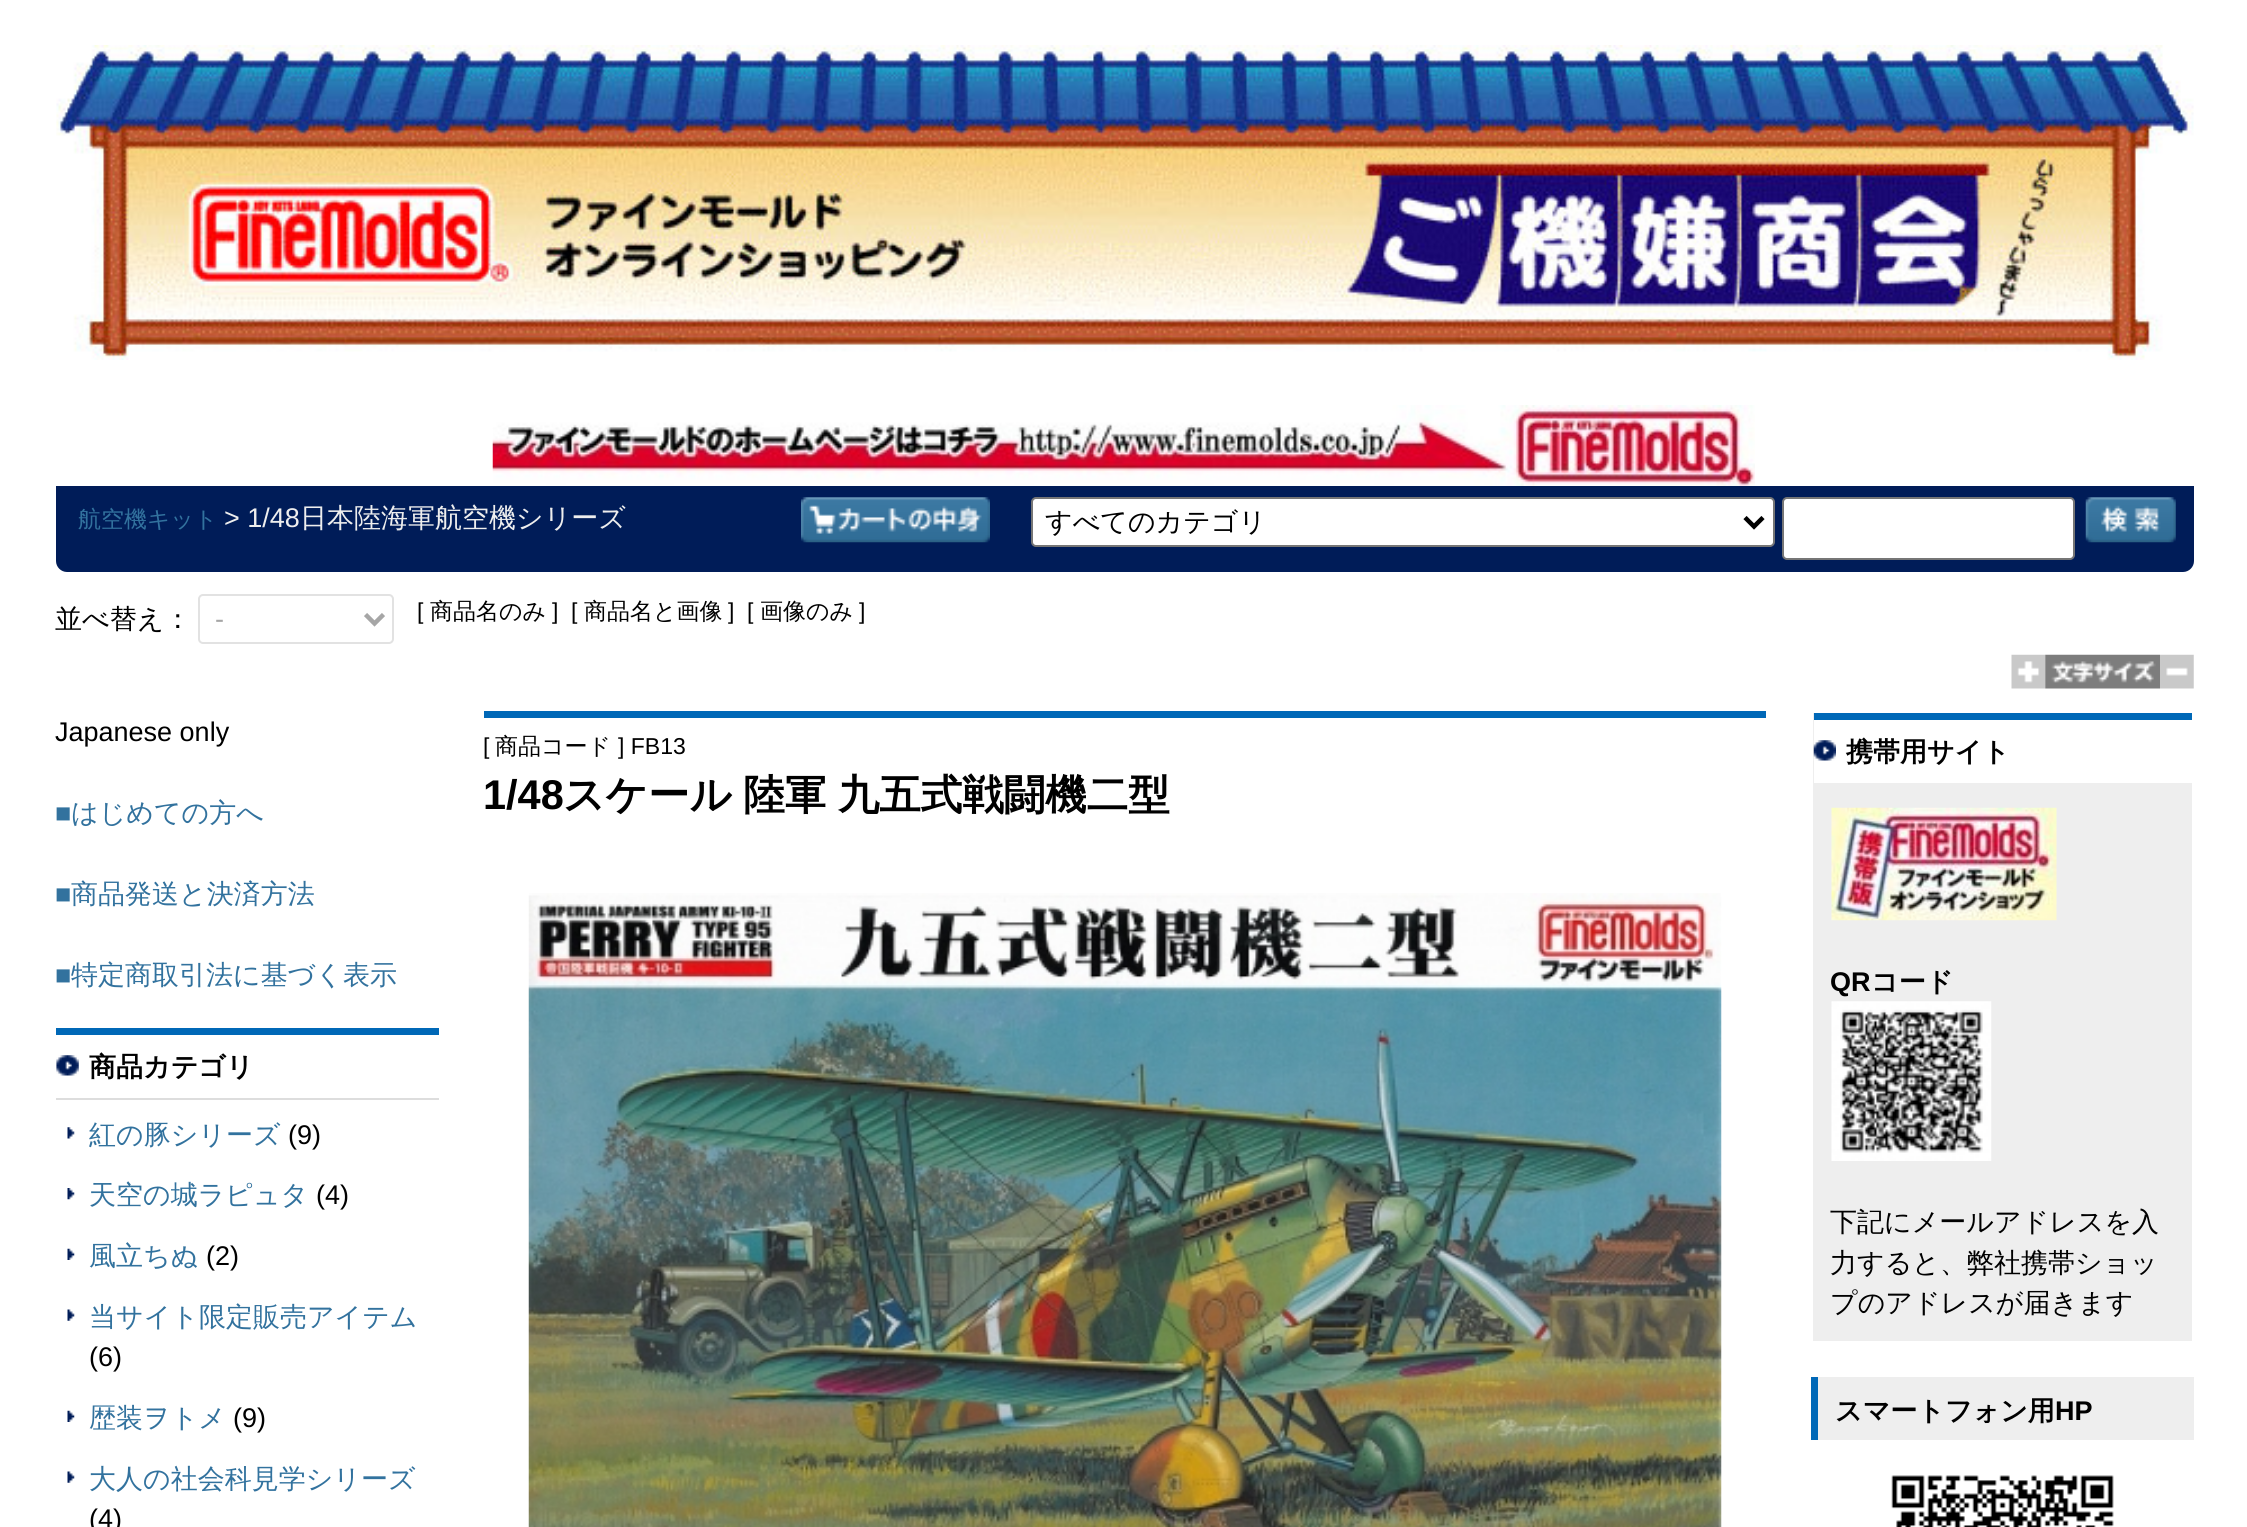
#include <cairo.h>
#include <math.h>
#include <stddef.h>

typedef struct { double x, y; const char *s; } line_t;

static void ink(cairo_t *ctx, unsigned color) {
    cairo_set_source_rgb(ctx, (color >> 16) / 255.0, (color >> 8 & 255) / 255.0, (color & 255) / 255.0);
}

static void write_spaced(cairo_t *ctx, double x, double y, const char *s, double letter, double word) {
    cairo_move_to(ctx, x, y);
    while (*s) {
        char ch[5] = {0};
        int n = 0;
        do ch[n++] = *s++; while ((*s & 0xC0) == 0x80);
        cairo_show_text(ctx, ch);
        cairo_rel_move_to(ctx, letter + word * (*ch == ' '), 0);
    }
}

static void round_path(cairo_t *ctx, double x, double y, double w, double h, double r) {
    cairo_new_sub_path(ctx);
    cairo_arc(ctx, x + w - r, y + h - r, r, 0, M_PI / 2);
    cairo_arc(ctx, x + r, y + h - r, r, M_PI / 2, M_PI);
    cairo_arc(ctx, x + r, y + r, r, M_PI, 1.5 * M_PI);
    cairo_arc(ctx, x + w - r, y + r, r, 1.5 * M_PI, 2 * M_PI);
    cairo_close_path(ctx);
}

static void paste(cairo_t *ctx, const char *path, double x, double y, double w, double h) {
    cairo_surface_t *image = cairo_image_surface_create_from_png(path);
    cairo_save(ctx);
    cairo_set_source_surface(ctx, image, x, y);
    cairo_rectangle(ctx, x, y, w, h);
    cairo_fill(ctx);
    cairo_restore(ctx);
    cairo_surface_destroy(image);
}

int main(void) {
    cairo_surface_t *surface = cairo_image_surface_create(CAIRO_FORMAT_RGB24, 2247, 1527);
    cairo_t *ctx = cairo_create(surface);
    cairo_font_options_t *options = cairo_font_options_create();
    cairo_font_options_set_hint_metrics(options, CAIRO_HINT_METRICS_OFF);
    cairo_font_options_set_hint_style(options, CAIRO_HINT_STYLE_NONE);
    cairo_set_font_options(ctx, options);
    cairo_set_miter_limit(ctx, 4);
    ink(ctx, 0xFFFFFF);
    cairo_paint(ctx);
    paste(ctx, "media/1.png", 56, 45, 2138, 315);
    paste(ctx, "media/2.png", 492, 405, 1263, 81);
    ink(ctx, 0x001C58);
    cairo_new_path(ctx);
    cairo_move_to(ctx, 56, 486);
    cairo_line_to(ctx, 2194, 486);
    cairo_line_to(ctx, 2194, 561);
    cairo_curve_to(ctx, 2194, 567, 2189, 572, 2183, 572);
    cairo_line_to(ctx, 67, 572);
    cairo_curve_to(ctx, 61, 572, 56, 567, 56, 561);
    cairo_close_path(ctx);
    cairo_fill(ctx);
    cairo_select_font_face(ctx, "WenQuanYi Zen Hei Medium", CAIRO_FONT_SLANT_NORMAL, CAIRO_FONT_WEIGHT_NORMAL);
    cairo_set_font_size(ctx, 23);
    ink(ctx, 0x32729E);
    cairo_move_to(ctx, 78, 527);
    cairo_show_text(ctx, "航空機キット");
    cairo_select_font_face(ctx, "Liberation Sans", CAIRO_FONT_SLANT_NORMAL, CAIRO_FONT_WEIGHT_NORMAL);
    cairo_set_font_size(ctx, 27);
    ink(ctx, 0xEEEEEE);
    cairo_move_to(ctx, 224, 527);
    cairo_show_text(ctx, "> 1/48");
    cairo_select_font_face(ctx, "WenQuanYi Zen Hei Medium", CAIRO_FONT_SLANT_NORMAL, CAIRO_FONT_WEIGHT_NORMAL);
    cairo_move_to(ctx, 300, 527);
    cairo_show_text(ctx, "日本陸海軍航空機シリーズ");
    paste(ctx, "media/3.png", 801, 497, 189, 46);
    ink(ctx, 0xFFFFFF);
    round_path(ctx, 1032, 498, 742, 48, 4);
    cairo_fill_preserve(ctx);
    ink(ctx, 0x767676);
    cairo_stroke(ctx);
    cairo_new_path(ctx);
    cairo_move_to(ctx, 1745, 517.5);
    cairo_line_to(ctx, 1754, 526.5);
    cairo_line_to(ctx, 1763, 517.5);
    ink(ctx, 0x000000);
    cairo_set_line_width(ctx, 4.5);
    cairo_stroke(ctx);
    cairo_move_to(ctx, 1045, 531);
    cairo_show_text(ctx, "すべてのカテゴリ");
    ink(ctx, 0xFFFFFF);
    round_path(ctx, 1783, 498, 291, 61, 4);
    cairo_fill_preserve(ctx);
    ink(ctx, 0x767676);
    cairo_set_line_width(ctx, 2);
    cairo_stroke(ctx);
    paste(ctx, "media/4.png", 2085, 497, 91, 46);
    ink(ctx, 0x000000);
    cairo_move_to(ctx, 55, 628);
    cairo_show_text(ctx, "並べ替え：");
    round_path(ctx, 199, 595, 194, 48, 4);
    ink(ctx, 0xE2E2E2);
    cairo_stroke(ctx);
    cairo_new_path(ctx);
    cairo_move_to(ctx, 365.5, 614.5);
    cairo_line_to(ctx, 374.5, 623.5);
    cairo_line_to(ctx, 383.5, 614.5);
    ink(ctx, 0xA6A6A6);
    cairo_set_line_width(ctx, 4.5);
    cairo_stroke(ctx);
    cairo_select_font_face(ctx, "Liberation Sans", CAIRO_FONT_SLANT_NORMAL, CAIRO_FONT_WEIGHT_NORMAL);
    cairo_move_to(ctx, 215, 628);
    cairo_show_text(ctx, "-");
    cairo_set_font_size(ctx, 23);
    ink(ctx, 0x000000);
    cairo_move_to(ctx, 417, 619);
    cairo_show_text(ctx, "[");
    cairo_select_font_face(ctx, "WenQuanYi Zen Hei Medium", CAIRO_FONT_SLANT_NORMAL, CAIRO_FONT_WEIGHT_NORMAL);
    cairo_move_to(ctx, 430, 619);
    cairo_show_text(ctx, "商品名のみ");
    cairo_select_font_face(ctx, "Liberation Sans", CAIRO_FONT_SLANT_NORMAL, CAIRO_FONT_WEIGHT_NORMAL);
    cairo_move_to(ctx, 552, 619);
    cairo_show_text(ctx, "]");
    cairo_move_to(ctx, 571, 619);
    cairo_show_text(ctx, "[");
    cairo_select_font_face(ctx, "WenQuanYi Zen Hei Medium", CAIRO_FONT_SLANT_NORMAL, CAIRO_FONT_WEIGHT_NORMAL);
    cairo_move_to(ctx, 584, 619);
    cairo_show_text(ctx, "商品名と画像");
    cairo_select_font_face(ctx, "Liberation Sans", CAIRO_FONT_SLANT_NORMAL, CAIRO_FONT_WEIGHT_NORMAL);
    cairo_move_to(ctx, 728, 619);
    cairo_show_text(ctx, "]");
    cairo_move_to(ctx, 747, 619);
    cairo_show_text(ctx, "[");
    cairo_select_font_face(ctx, "WenQuanYi Zen Hei Medium", CAIRO_FONT_SLANT_NORMAL, CAIRO_FONT_WEIGHT_NORMAL);
    cairo_move_to(ctx, 760, 619);
    cairo_show_text(ctx, "画像のみ");
    cairo_select_font_face(ctx, "Liberation Sans", CAIRO_FONT_SLANT_NORMAL, CAIRO_FONT_WEIGHT_NORMAL);
    cairo_move_to(ctx, 859, 619);
    cairo_show_text(ctx, "]");
    paste(ctx, "media/5.png", 2011, 654, 35, 35);
    paste(ctx, "media/6.png", 2045, 654, 115, 35);
    paste(ctx, "media/7.png", 2160, 654, 34, 35);
    cairo_set_font_size(ctx, 27);
    cairo_move_to(ctx, 55, 741);
    cairo_show_text(ctx, "Japanese only");
    ink(ctx, 0x32729E);
    cairo_move_to(ctx, 55, 822);
    cairo_show_text(ctx, "■");
    cairo_select_font_face(ctx, "WenQuanYi Zen Hei Medium", CAIRO_FONT_SLANT_NORMAL, CAIRO_FONT_WEIGHT_NORMAL);
    cairo_move_to(ctx, 71, 822);
    cairo_show_text(ctx, "はじめての方へ");
    cairo_select_font_face(ctx, "Liberation Sans", CAIRO_FONT_SLANT_NORMAL, CAIRO_FONT_WEIGHT_NORMAL);
    cairo_move_to(ctx, 55, 903);
    cairo_show_text(ctx, "■");
    cairo_select_font_face(ctx, "WenQuanYi Zen Hei Medium", CAIRO_FONT_SLANT_NORMAL, CAIRO_FONT_WEIGHT_NORMAL);
    cairo_move_to(ctx, 71, 903);
    cairo_show_text(ctx, "商品発送と決済方法");
    cairo_select_font_face(ctx, "Liberation Sans", CAIRO_FONT_SLANT_NORMAL, CAIRO_FONT_WEIGHT_NORMAL);
    cairo_move_to(ctx, 55, 984);
    cairo_show_text(ctx, "■");
    cairo_select_font_face(ctx, "WenQuanYi Zen Hei Medium", CAIRO_FONT_SLANT_NORMAL, CAIRO_FONT_WEIGHT_NORMAL);
    cairo_move_to(ctx, 71, 984);
    cairo_show_text(ctx, "特定商取引法に基づく表示");
    paste(ctx, "media/8.png", 56, 1055, 23, 21);
    ink(ctx, 0x0068B7);
    cairo_rectangle(ctx, 56, 1028, 383, 7);
    cairo_fill(ctx);
    ink(ctx, 0xDDDDDD);
    cairo_rectangle(ctx, 56, 1098, 383, 2);
    cairo_fill(ctx);
    cairo_select_font_face(ctx, "WenQuanYi Zen Hei", CAIRO_FONT_SLANT_NORMAL, CAIRO_FONT_WEIGHT_BOLD);
    ink(ctx, 0x000000);
    cairo_move_to(ctx, 89, 1076);
    cairo_show_text(ctx, "商品カテゴリ");
    paste(ctx, "media/9.png", 67, 1127, 8, 12);
    cairo_select_font_face(ctx, "WenQuanYi Zen Hei Medium", CAIRO_FONT_SLANT_NORMAL, CAIRO_FONT_WEIGHT_NORMAL);
    ink(ctx, 0x32729E);
    cairo_move_to(ctx, 89, 1144);
    cairo_show_text(ctx, "紅の豚シリーズ");
    cairo_select_font_face(ctx, "Liberation Sans", CAIRO_FONT_SLANT_NORMAL, CAIRO_FONT_WEIGHT_NORMAL);
    ink(ctx, 0x000000);
    cairo_move_to(ctx, 288, 1144);
    cairo_show_text(ctx, "(9)");
    paste(ctx, "media/10.png", 67, 1188, 8, 12);
    cairo_select_font_face(ctx, "WenQuanYi Zen Hei Medium", CAIRO_FONT_SLANT_NORMAL, CAIRO_FONT_WEIGHT_NORMAL);
    ink(ctx, 0x32729E);
    cairo_move_to(ctx, 89, 1204);
    cairo_show_text(ctx, "天空の城ラピュタ");
    cairo_select_font_face(ctx, "Liberation Sans", CAIRO_FONT_SLANT_NORMAL, CAIRO_FONT_WEIGHT_NORMAL);
    ink(ctx, 0x000000);
    cairo_move_to(ctx, 316, 1204);
    cairo_show_text(ctx, "(4)");
    paste(ctx, "media/11.png", 67, 1248, 8, 12);
    cairo_select_font_face(ctx, "WenQuanYi Zen Hei Medium", CAIRO_FONT_SLANT_NORMAL, CAIRO_FONT_WEIGHT_NORMAL);
    ink(ctx, 0x32729E);
    cairo_move_to(ctx, 89, 1265);
    cairo_show_text(ctx, "風立ちぬ");
    cairo_select_font_face(ctx, "Liberation Sans", CAIRO_FONT_SLANT_NORMAL, CAIRO_FONT_WEIGHT_NORMAL);
    ink(ctx, 0x000000);
    cairo_move_to(ctx, 206, 1265);
    cairo_show_text(ctx, "(2)");
    paste(ctx, "media/12.png", 67, 1309, 8, 12);
    cairo_select_font_face(ctx, "WenQuanYi Zen Hei Medium", CAIRO_FONT_SLANT_NORMAL, CAIRO_FONT_WEIGHT_NORMAL);
    ink(ctx, 0x32729E);
    cairo_move_to(ctx, 89, 1326);
    cairo_show_text(ctx, "当サイト限定販売アイテム");
    cairo_select_font_face(ctx, "Liberation Sans", CAIRO_FONT_SLANT_NORMAL, CAIRO_FONT_WEIGHT_NORMAL);
    ink(ctx, 0x000000);
    cairo_move_to(ctx, 89, 1366);
    cairo_show_text(ctx, "(6)");
    paste(ctx, "media/11.png", 67, 1410, 8, 12);
    cairo_select_font_face(ctx, "WenQuanYi Zen Hei Medium", CAIRO_FONT_SLANT_NORMAL, CAIRO_FONT_WEIGHT_NORMAL);
    ink(ctx, 0x32729E);
    cairo_move_to(ctx, 89, 1427);
    cairo_show_text(ctx, "歴装ヲトメ");
    cairo_select_font_face(ctx, "Liberation Sans", CAIRO_FONT_SLANT_NORMAL, CAIRO_FONT_WEIGHT_NORMAL);
    ink(ctx, 0x000000);
    cairo_move_to(ctx, 233, 1427);
    cairo_show_text(ctx, "(9)");
    paste(ctx, "media/12.png", 67, 1471, 8, 12);
    cairo_select_font_face(ctx, "WenQuanYi Zen Hei Medium", CAIRO_FONT_SLANT_NORMAL, CAIRO_FONT_WEIGHT_NORMAL);
    ink(ctx, 0x32729E);
    cairo_move_to(ctx, 89, 1488);
    cairo_show_text(ctx, "大人の社会科見学シリーズ");
    cairo_select_font_face(ctx, "Liberation Sans", CAIRO_FONT_SLANT_NORMAL, CAIRO_FONT_WEIGHT_NORMAL);
    ink(ctx, 0x000000);
    cairo_move_to(ctx, 89, 1528);
    cairo_show_text(ctx, "(4)");
    ink(ctx, 0x0068B7);
    cairo_rectangle(ctx, 484, 711, 1282, 7);
    cairo_fill(ctx);
    cairo_set_font_size(ctx, 23);
    ink(ctx, 0x000000);
    cairo_move_to(ctx, 483, 754);
    cairo_show_text(ctx, "[");
    cairo_select_font_face(ctx, "WenQuanYi Zen Hei Medium", CAIRO_FONT_SLANT_NORMAL, CAIRO_FONT_WEIGHT_NORMAL);
    cairo_move_to(ctx, 495, 754);
    cairo_show_text(ctx, "商品コード");
    cairo_select_font_face(ctx, "Liberation Sans", CAIRO_FONT_SLANT_NORMAL, CAIRO_FONT_WEIGHT_NORMAL);
    cairo_move_to(ctx, 618, 754);
    cairo_show_text(ctx, "] FB13");
    cairo_select_font_face(ctx, "Liberation Sans", CAIRO_FONT_SLANT_NORMAL, CAIRO_FONT_WEIGHT_BOLD);
    cairo_set_font_size(ctx, 41.5);
    cairo_move_to(ctx, 483, 809);
    cairo_show_text(ctx, "1/48");
    cairo_select_font_face(ctx, "WenQuanYi Zen Hei", CAIRO_FONT_SLANT_NORMAL, CAIRO_FONT_WEIGHT_BOLD);
    write_spaced(ctx, 563, 809, "スケール 陸軍 九五式戦闘機二型", 0, -1);
    paste(ctx, "media/13.png", 528, 893, 1194, 634);
    ink(ctx, 0xEEEEEE);
    cairo_rectangle(ctx, 1813, 713, 379, 628);
    cairo_fill(ctx);
    ink(ctx, 0xFFFFFF);
    cairo_rectangle(ctx, 1814, 720, 378, 63);
    cairo_fill(ctx);
    paste(ctx, "media/14.png", 1813, 740, 23, 21);
    ink(ctx, 0x0068B7);
    cairo_rectangle(ctx, 1814, 713, 378, 7);
    cairo_fill(ctx);
    cairo_set_font_size(ctx, 27);
    ink(ctx, 0x000000);
    cairo_move_to(ctx, 1846, 761);
    cairo_show_text(ctx, "携帯用サイト");
    paste(ctx, "media/15.png", 1831, 807, 226, 114);
    cairo_select_font_face(ctx, "Liberation Sans", CAIRO_FONT_SLANT_NORMAL, CAIRO_FONT_WEIGHT_BOLD);
    cairo_move_to(ctx, 1830, 991);
    cairo_show_text(ctx, "QR");
    cairo_select_font_face(ctx, "WenQuanYi Zen Hei", CAIRO_FONT_SLANT_NORMAL, CAIRO_FONT_WEIGHT_BOLD);
    cairo_move_to(ctx, 1871, 991);
    cairo_show_text(ctx, "コード");
    paste(ctx, "media/16.png", 1831, 1001, 161, 160);
    cairo_select_font_face(ctx, "WenQuanYi Zen Hei Medium", CAIRO_FONT_SLANT_NORMAL, CAIRO_FONT_WEIGHT_NORMAL);
    {
        static const line_t items[] = {
            {1830, 1231, "下記にメールアドレスを入"},
            {1830, 1272, "力すると、弊社携帯ショッ"},
            {1830, 1312, "プのアドレスが届きます"},
        };
        for (size_t i = 0; i < sizeof items / sizeof *items; i++) {
            cairo_move_to(ctx, items[i].x, items[i].y);
            cairo_show_text(ctx, items[i].s);
        }
    }
    ink(ctx, 0xEEEEEE);
    cairo_rectangle(ctx, 1818, 1377, 376, 63);
    cairo_fill(ctx);
    ink(ctx, 0x0068B7);
    cairo_rectangle(ctx, 1811, 1377, 7, 63);
    cairo_fill(ctx);
    cairo_select_font_face(ctx, "WenQuanYi Zen Hei", CAIRO_FONT_SLANT_NORMAL, CAIRO_FONT_WEIGHT_BOLD);
    ink(ctx, 0x000000);
    cairo_move_to(ctx, 1835, 1420);
    cairo_show_text(ctx, "スマートフォン用");
    cairo_select_font_face(ctx, "Liberation Sans", CAIRO_FONT_SLANT_NORMAL, CAIRO_FONT_WEIGHT_BOLD);
    cairo_move_to(ctx, 2055, 1420);
    cairo_show_text(ctx, "HP");
    paste(ctx, "media/17.png", 1891, 1475, 223, 52);
    cairo_surface_write_to_png(surface, "image.png");
    cairo_font_options_destroy(options);
    cairo_destroy(ctx);
    cairo_surface_destroy(surface);
    return 0;
}
